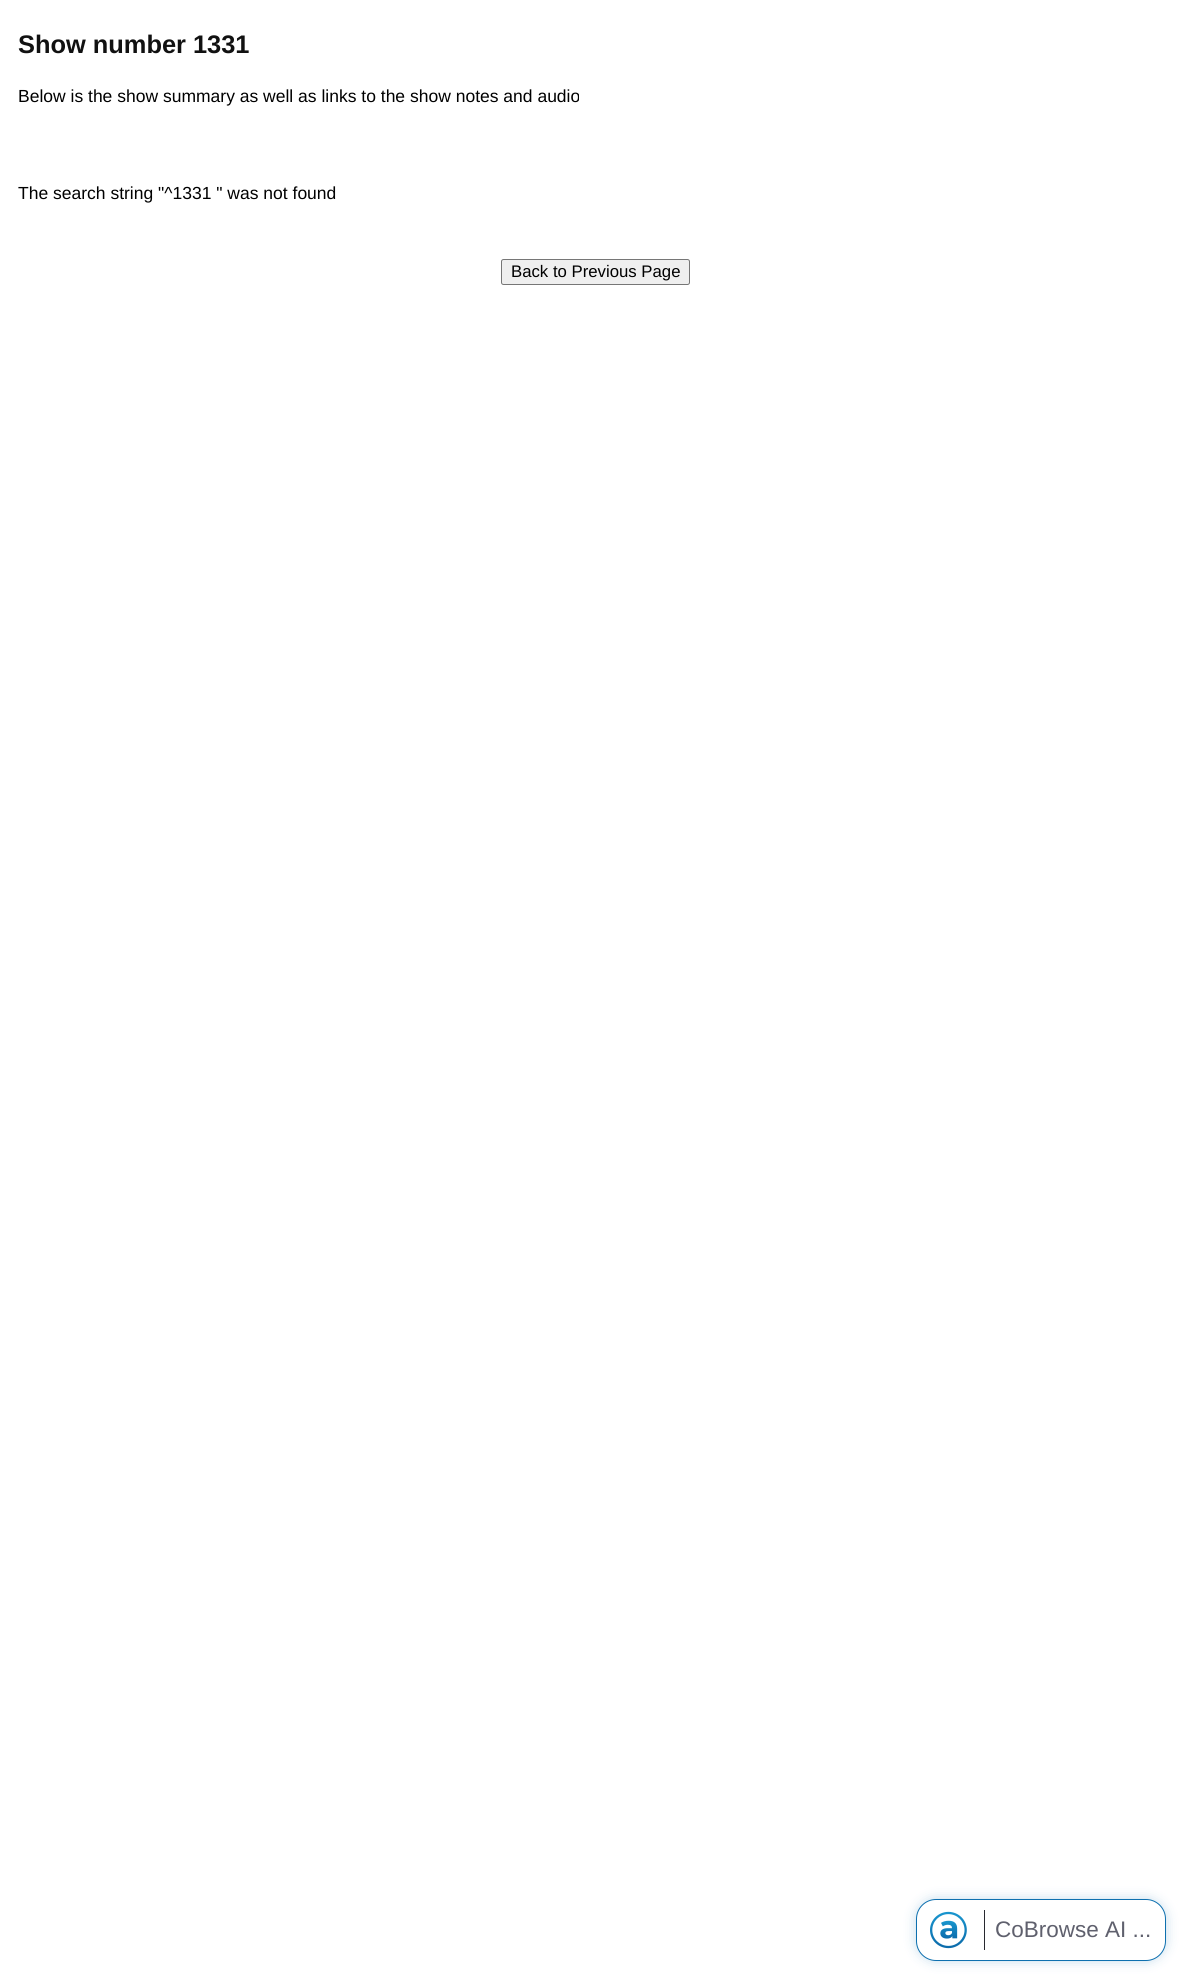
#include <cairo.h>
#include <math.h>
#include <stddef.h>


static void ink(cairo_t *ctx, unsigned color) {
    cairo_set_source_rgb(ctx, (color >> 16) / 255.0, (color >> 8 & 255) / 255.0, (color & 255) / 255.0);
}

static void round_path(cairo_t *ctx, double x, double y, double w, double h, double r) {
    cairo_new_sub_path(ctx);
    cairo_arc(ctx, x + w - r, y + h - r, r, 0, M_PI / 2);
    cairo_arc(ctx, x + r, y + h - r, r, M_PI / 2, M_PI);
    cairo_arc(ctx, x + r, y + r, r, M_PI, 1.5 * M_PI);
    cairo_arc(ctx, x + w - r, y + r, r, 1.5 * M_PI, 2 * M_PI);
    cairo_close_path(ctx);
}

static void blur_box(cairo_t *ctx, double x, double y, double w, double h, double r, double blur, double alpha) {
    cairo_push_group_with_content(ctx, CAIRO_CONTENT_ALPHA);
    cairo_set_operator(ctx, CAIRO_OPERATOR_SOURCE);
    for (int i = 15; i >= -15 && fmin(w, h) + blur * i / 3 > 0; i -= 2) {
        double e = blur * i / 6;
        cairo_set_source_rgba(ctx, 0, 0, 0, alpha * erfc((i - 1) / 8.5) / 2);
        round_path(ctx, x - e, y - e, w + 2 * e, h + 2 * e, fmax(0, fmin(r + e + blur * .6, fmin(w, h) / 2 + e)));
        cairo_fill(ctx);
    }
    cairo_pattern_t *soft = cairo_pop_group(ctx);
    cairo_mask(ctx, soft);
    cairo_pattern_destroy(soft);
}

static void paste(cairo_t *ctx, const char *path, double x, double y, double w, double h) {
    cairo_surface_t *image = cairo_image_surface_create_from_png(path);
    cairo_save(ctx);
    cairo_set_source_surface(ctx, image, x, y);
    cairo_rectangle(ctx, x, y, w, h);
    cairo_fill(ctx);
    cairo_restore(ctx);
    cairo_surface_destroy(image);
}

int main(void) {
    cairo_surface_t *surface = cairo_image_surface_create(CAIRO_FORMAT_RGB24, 1191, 1986);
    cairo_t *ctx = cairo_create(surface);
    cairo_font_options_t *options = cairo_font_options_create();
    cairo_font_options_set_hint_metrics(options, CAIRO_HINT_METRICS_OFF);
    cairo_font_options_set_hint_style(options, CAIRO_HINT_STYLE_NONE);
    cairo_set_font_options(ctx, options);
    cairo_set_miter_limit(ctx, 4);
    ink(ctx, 0xFFFFFF);
    cairo_paint(ctx);
    cairo_select_font_face(ctx, "Liberation Sans", CAIRO_FONT_SLANT_NORMAL, CAIRO_FONT_WEIGHT_BOLD);
    cairo_set_font_size(ctx, 25.4);
    ink(ctx, 0x111111);
    cairo_move_to(ctx, 18, 53);
    cairo_show_text(ctx, "Show number 1331");
    cairo_select_font_face(ctx, "Liberation Sans", CAIRO_FONT_SLANT_NORMAL, CAIRO_FONT_WEIGHT_NORMAL);
    cairo_set_font_size(ctx, 17.5);
    ink(ctx, 0x000000);
    cairo_move_to(ctx, 18, 102);
    cairo_show_text(ctx, "Below is the show summary as well as links to the show notes and audio");
    cairo_move_to(ctx, 18, 199);
    cairo_show_text(ctx, "The search string \"^1331 \" was not found");
    ink(ctx, 0xEFEFEF);
    round_path(ctx, 501.5, 259.5, 188, 25, 2);
    cairo_fill_preserve(ctx);
    ink(ctx, 0x767676);
    cairo_set_line_width(ctx, 1);
    cairo_stroke(ctx);
    cairo_set_font_size(ctx, 16.75);
    ink(ctx, 0x000000);
    cairo_move_to(ctx, 511, 277);
    cairo_show_text(ctx, "Back to Previous Page");
    ink(ctx, 0x0E70AF);
    blur_box(ctx, 916, 1899, 250, 62, 20, 6, 0.25);
    ink(ctx, 0xFFFFFF);
    round_path(ctx, 916.5, 1899.5, 249, 61, 19.5);
    cairo_fill_preserve(ctx);
    ink(ctx, 0x0E70AF);
    cairo_stroke(ctx);
    paste(ctx, "media/1.png", 930, 1911, 37, 38);
    ink(ctx, 0x28292F);
    cairo_rectangle(ctx, 984, 1910, 1, 40);
    cairo_fill(ctx);
    cairo_set_font_size(ctx, 22.5);
    ink(ctx, 0x5F606D);
    cairo_move_to(ctx, 995, 1937);
    cairo_show_text(ctx, "CoBrowse AI ...");
    cairo_surface_write_to_png(surface, "image.png");
    cairo_font_options_destroy(options);
    cairo_destroy(ctx);
    cairo_surface_destroy(surface);
    return 0;
}
